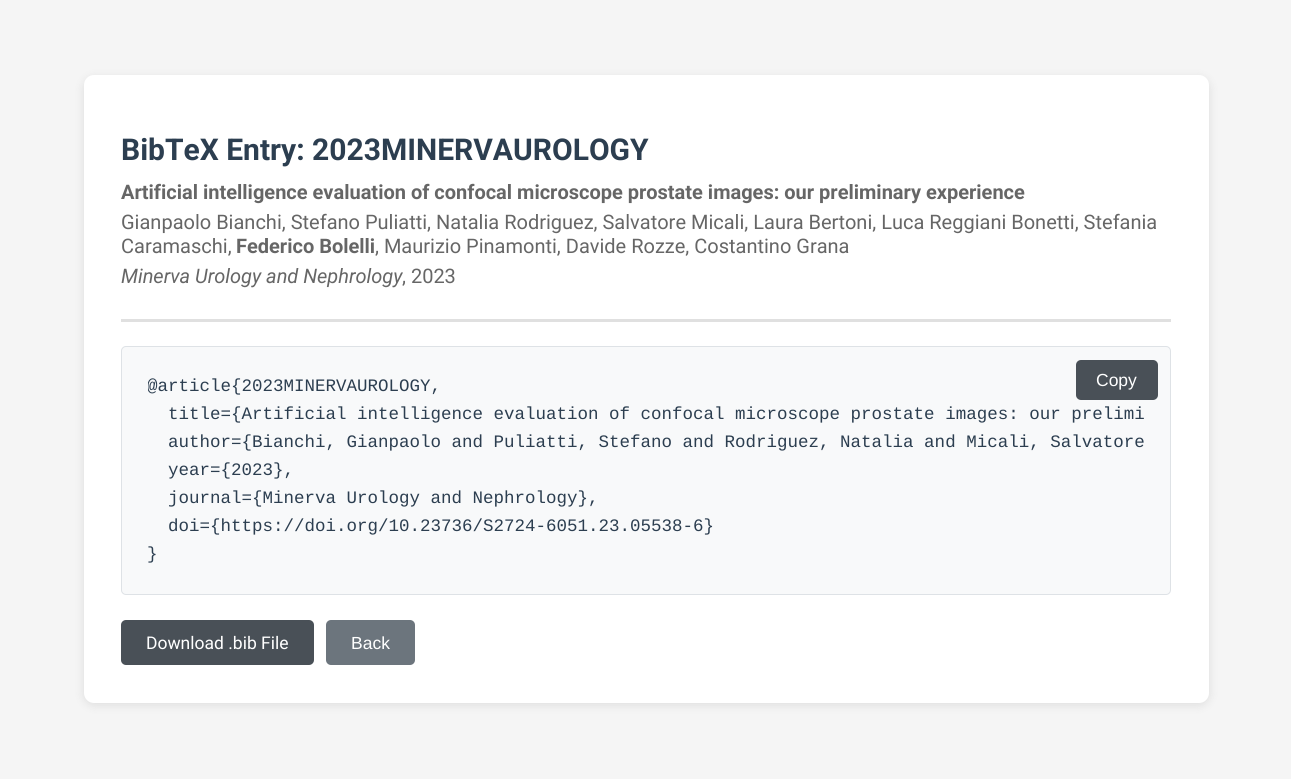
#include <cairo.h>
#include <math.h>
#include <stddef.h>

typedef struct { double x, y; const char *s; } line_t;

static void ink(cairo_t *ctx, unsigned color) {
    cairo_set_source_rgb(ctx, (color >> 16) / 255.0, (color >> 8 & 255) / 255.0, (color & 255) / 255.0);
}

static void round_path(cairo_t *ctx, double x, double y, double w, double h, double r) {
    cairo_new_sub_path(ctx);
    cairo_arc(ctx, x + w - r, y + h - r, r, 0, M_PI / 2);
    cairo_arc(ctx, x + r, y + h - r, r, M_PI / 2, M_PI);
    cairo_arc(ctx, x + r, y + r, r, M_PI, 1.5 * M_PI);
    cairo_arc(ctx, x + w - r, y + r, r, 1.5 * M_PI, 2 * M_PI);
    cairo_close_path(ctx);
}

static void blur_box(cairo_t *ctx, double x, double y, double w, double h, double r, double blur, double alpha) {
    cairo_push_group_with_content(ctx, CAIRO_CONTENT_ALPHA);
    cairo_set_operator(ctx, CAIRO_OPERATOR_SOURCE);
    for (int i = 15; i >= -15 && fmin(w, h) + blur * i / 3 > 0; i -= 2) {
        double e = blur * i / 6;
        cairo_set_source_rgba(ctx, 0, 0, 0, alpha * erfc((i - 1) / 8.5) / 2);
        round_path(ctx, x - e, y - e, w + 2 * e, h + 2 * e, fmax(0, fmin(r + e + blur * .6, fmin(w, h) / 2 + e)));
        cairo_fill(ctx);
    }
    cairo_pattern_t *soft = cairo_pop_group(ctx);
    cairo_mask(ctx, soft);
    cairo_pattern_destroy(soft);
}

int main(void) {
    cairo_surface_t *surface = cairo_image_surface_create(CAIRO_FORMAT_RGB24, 1291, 779);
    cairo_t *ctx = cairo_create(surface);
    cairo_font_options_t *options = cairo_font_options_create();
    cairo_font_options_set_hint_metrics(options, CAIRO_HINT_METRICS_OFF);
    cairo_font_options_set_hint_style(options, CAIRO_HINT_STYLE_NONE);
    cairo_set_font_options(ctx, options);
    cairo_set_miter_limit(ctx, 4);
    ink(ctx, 0xF5F5F5);
    cairo_paint(ctx);
    ink(ctx, 0x000000);
    blur_box(ctx, 84, 78, 1125, 627, 10, 5, 0.1);
    ink(ctx, 0xFFFFFF);
    round_path(ctx, 84, 75, 1125, 628, 10);
    cairo_fill(ctx);
    cairo_select_font_face(ctx, "Roboto", CAIRO_FONT_SLANT_NORMAL, CAIRO_FONT_WEIGHT_BOLD);
    cairo_set_font_size(ctx, 30);
    ink(ctx, 0x2C3E50);
    cairo_move_to(ctx, 121, 160);
    cairo_show_text(ctx, "BibTeX Entry: 2023MINERVAUROLOGY");
    ink(ctx, 0xE0E0E0);
    cairo_rectangle(ctx, 121, 319, 1050, 3);
    cairo_fill(ctx);
    cairo_set_font_size(ctx, 20);
    ink(ctx, 0x666666);
    cairo_move_to(ctx, 121, 199);
    cairo_show_text(ctx, "Artificial intelligence evaluation of confocal microscope prostate images: our preliminary experience");
    cairo_select_font_face(ctx, "Roboto", CAIRO_FONT_SLANT_NORMAL, CAIRO_FONT_WEIGHT_NORMAL);
    cairo_move_to(ctx, 121, 229);
    cairo_show_text(ctx, "Gianpaolo Bianchi, Stefano Puliatti, Natalia Rodriguez, Salvatore Micali, Laura Bertoni, Luca Reggiani Bonetti, Stefania");
    cairo_move_to(ctx, 121, 253);
    cairo_show_text(ctx, "Caramaschi,");
    cairo_select_font_face(ctx, "Roboto", CAIRO_FONT_SLANT_NORMAL, CAIRO_FONT_WEIGHT_BOLD);
    cairo_move_to(ctx, 236, 253);
    cairo_show_text(ctx, "Federico Bolelli");
    cairo_select_font_face(ctx, "Roboto", CAIRO_FONT_SLANT_NORMAL, CAIRO_FONT_WEIGHT_NORMAL);
    cairo_move_to(ctx, 375, 253);
    cairo_show_text(ctx, ", Maurizio Pinamonti, Davide Rozze, Costantino Grana");
    cairo_select_font_face(ctx, "Roboto", CAIRO_FONT_SLANT_ITALIC, CAIRO_FONT_WEIGHT_NORMAL);
    cairo_move_to(ctx, 121, 283);
    cairo_show_text(ctx, "Minerva Urology and Nephrology");
    cairo_select_font_face(ctx, "Roboto", CAIRO_FONT_SLANT_NORMAL, CAIRO_FONT_WEIGHT_NORMAL);
    cairo_move_to(ctx, 402, 283);
    cairo_show_text(ctx, ", 2023");
    ink(ctx, 0xF8F9FA);
    round_path(ctx, 121.5, 346.5, 1049, 248, 4.5);
    cairo_fill_preserve(ctx);
    ink(ctx, 0xDEE2E6);
    cairo_set_line_width(ctx, 1);
    cairo_stroke(ctx);
    ink(ctx, 0x495057);
    round_path(ctx, 1076, 360, 82, 40, 5);
    cairo_fill(ctx);
    cairo_select_font_face(ctx, "Liberation Sans", CAIRO_FONT_SLANT_NORMAL, CAIRO_FONT_WEIGHT_NORMAL);
    cairo_set_font_size(ctx, 17.5);
    ink(ctx, 0xFFFFFF);
    cairo_move_to(ctx, 1096, 386);
    cairo_show_text(ctx, "Copy");
    cairo_save(ctx);
    cairo_rectangle(ctx, 148, 373, 997, 196);
    cairo_clip(ctx);
    cairo_select_font_face(ctx, "Liberation Mono", CAIRO_FONT_SLANT_NORMAL, CAIRO_FONT_WEIGHT_NORMAL);
    ink(ctx, 0x2C3E50);
    cairo_move_to(ctx, 147, 391);
    cairo_show_text(ctx, "@article{2023MINERVAUROLOGY,");
    cairo_restore(ctx);
    cairo_select_font_face(ctx, "Liberation Mono", CAIRO_FONT_SLANT_NORMAL, CAIRO_FONT_WEIGHT_NORMAL);
    ink(ctx, 0x2C3E50);
    {
        static const line_t items[] = {
            {168, 419, "title={Artificial intelligence evaluation of confocal microscope prostate images: our prelimi"},
            {168, 447, "author={Bianchi, Gianpaolo and Puliatti, Stefano and Rodriguez, Natalia and Micali, Salvatore"},
            {168, 475, "year={2023},"},
            {168, 503, "journal={Minerva Urology and Nephrology},"},
            {168, 531, "doi={https://doi.org/10.23736/S2724-6051.23.05538-6}"},
            {147, 559, "}"},
        };
        for (size_t i = 0; i < sizeof items / sizeof *items; i++) {
            cairo_move_to(ctx, items[i].x, items[i].y);
            cairo_show_text(ctx, items[i].s);
        }
    }
    ink(ctx, 0x495057);
    round_path(ctx, 121, 620, 193, 45, 5);
    cairo_fill(ctx);
    cairo_select_font_face(ctx, "Roboto", CAIRO_FONT_SLANT_NORMAL, CAIRO_FONT_WEIGHT_NORMAL);
    ink(ctx, 0xFFFFFF);
    cairo_move_to(ctx, 146, 649);
    cairo_show_text(ctx, "Download .bib File");
    ink(ctx, 0x6C757D);
    round_path(ctx, 326, 620, 89, 45, 5);
    cairo_fill(ctx);
    cairo_select_font_face(ctx, "Liberation Sans", CAIRO_FONT_SLANT_NORMAL, CAIRO_FONT_WEIGHT_NORMAL);
    ink(ctx, 0xFFFFFF);
    cairo_move_to(ctx, 351, 649);
    cairo_show_text(ctx, "Back");
    cairo_surface_write_to_png(surface, "image.png");
    cairo_font_options_destroy(options);
    cairo_destroy(ctx);
    cairo_surface_destroy(surface);
    return 0;
}
